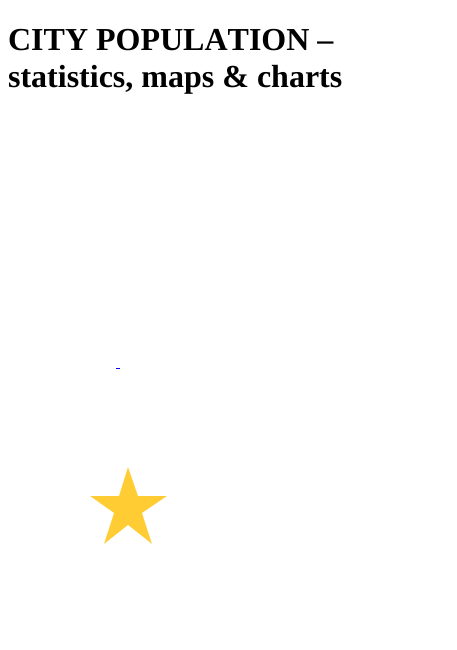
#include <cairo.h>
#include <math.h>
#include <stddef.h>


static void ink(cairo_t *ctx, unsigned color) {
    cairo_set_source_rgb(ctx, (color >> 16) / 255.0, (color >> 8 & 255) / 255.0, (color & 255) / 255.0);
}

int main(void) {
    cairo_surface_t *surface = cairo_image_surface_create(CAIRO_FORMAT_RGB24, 457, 650);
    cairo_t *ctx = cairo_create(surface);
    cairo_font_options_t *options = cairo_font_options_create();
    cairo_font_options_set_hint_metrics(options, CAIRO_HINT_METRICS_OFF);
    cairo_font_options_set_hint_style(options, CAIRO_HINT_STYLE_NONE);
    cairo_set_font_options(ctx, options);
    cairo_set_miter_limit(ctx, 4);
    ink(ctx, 0xFFFFFF);
    cairo_paint(ctx);
    cairo_select_font_face(ctx, "Liberation Serif", CAIRO_FONT_SLANT_NORMAL, CAIRO_FONT_WEIGHT_BOLD);
    cairo_set_font_size(ctx, 32);
    ink(ctx, 0x000000);
    cairo_move_to(ctx, 8, 50);
    cairo_show_text(ctx, "CITY POPULATION –");
    cairo_move_to(ctx, 8, 87);
    cairo_show_text(ctx, "statistics, maps & charts");
    ink(ctx, 0x0000EE);
    cairo_rectangle(ctx, 116, 368, 4, 1);
    cairo_fill(ctx);
    ink(ctx, 0xFFCC33);
    cairo_set_fill_rule(ctx, CAIRO_FILL_RULE_EVEN_ODD);
    cairo_new_path(ctx);
    cairo_move_to(ctx, 128, 525);
    cairo_line_to(ctx, 104, 544);
    cairo_line_to(ctx, 114, 513);
    cairo_line_to(ctx, 90, 496);
    cairo_line_to(ctx, 119, 496);
    cairo_line_to(ctx, 128, 467);
    cairo_line_to(ctx, 138, 496);
    cairo_line_to(ctx, 167, 496);
    cairo_line_to(ctx, 142, 513);
    cairo_line_to(ctx, 152, 544);
    cairo_close_path(ctx);
    cairo_fill(ctx);
    cairo_surface_write_to_png(surface, "image.png");
    cairo_font_options_destroy(options);
    cairo_destroy(ctx);
    cairo_surface_destroy(surface);
    return 0;
}
